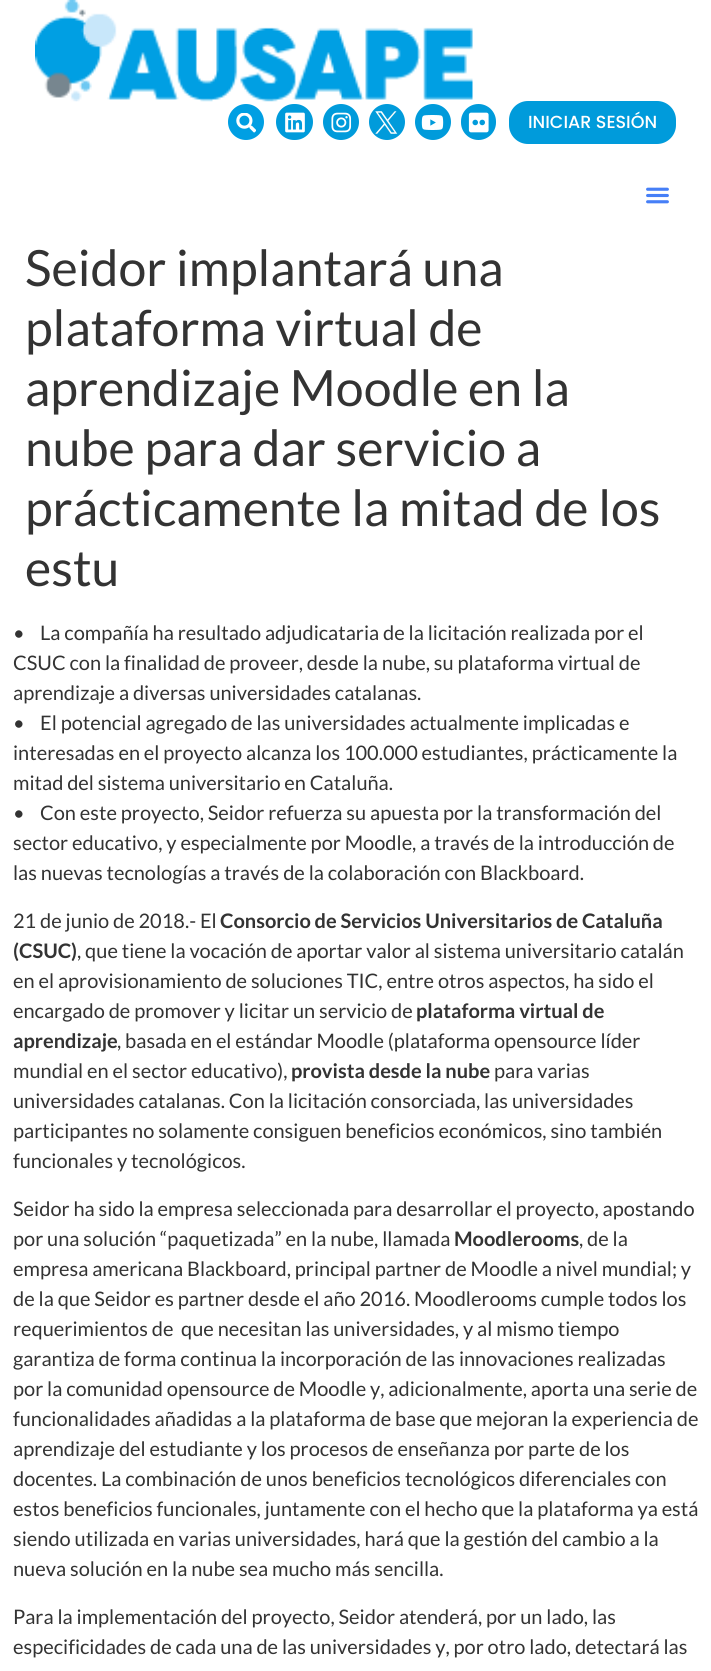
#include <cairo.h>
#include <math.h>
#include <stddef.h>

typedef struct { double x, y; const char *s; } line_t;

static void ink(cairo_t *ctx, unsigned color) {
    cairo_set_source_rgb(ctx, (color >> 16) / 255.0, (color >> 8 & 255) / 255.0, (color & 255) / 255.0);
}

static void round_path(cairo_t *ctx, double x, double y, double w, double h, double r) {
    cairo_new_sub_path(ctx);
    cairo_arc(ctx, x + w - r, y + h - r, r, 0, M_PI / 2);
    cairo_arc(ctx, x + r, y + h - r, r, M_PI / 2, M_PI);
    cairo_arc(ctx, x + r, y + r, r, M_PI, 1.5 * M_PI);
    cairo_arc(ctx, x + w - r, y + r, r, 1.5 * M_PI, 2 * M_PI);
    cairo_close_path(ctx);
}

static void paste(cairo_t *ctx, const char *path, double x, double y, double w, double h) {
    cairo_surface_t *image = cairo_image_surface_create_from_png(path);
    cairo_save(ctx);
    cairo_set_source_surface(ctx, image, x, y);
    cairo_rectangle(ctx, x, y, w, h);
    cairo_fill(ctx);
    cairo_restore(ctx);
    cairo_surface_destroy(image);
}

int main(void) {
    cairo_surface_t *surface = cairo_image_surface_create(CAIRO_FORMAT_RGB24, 711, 1671);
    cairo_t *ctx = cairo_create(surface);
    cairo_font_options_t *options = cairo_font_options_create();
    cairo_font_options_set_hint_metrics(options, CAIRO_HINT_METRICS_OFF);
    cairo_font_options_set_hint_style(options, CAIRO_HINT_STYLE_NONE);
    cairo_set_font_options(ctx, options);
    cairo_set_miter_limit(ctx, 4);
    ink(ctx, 0xFFFFFF);
    cairo_paint(ctx);
    paste(ctx, "media/1.png", 35, 0, 438, 102);
    ink(ctx, 0x009FE3);
    cairo_arc(ctx, 246, 122, 18, 0, 2 * M_PI);
    cairo_fill(ctx);
    paste(ctx, "media/2.png", 236, 113, 20, 20);
    ink(ctx, 0x009BDB);
    round_path(ctx, 276, 104, 37, 36, 18);
    cairo_fill(ctx);
    paste(ctx, "media/3.png", 285, 112, 20, 21);
    cairo_arc(ctx, 341, 122, 18, 0, 2 * M_PI);
    cairo_fill(ctx);
    paste(ctx, "media/4.png", 331, 112, 21, 21);
    cairo_arc(ctx, 387, 122, 18, 0, 2 * M_PI);
    cairo_fill(ctx);
    paste(ctx, "media/5.png", 375, 111, 23, 23);
    cairo_arc(ctx, 433, 122, 18, 0, 2 * M_PI);
    cairo_fill(ctx);
    paste(ctx, "media/6.png", 421, 115, 23, 15);
    round_path(ctx, 461, 104, 35, 36, 17.5);
    cairo_fill(ctx);
    paste(ctx, "media/7.png", 468, 112, 21, 21);
    round_path(ctx, 509, 101, 167, 43, 19);
    cairo_fill(ctx);
    cairo_select_font_face(ctx, "Poppins Medium", CAIRO_FONT_SLANT_NORMAL, CAIRO_FONT_WEIGHT_NORMAL);
    cairo_set_font_size(ctx, 17.5);
    ink(ctx, 0xFFFFFF);
    cairo_move_to(ctx, 528, 128);
    cairo_show_text(ctx, "INICIAR SESIÓN");
    paste(ctx, "media/8.png", 646, 187, 23, 17);
    cairo_select_font_face(ctx, "Lato", CAIRO_FONT_SLANT_NORMAL, CAIRO_FONT_WEIGHT_NORMAL);
    cairo_set_font_size(ctx, 50);
    ink(ctx, 0x333333);
    {
        static const line_t items[] = {
            {25, 286, "Seidor implantará una"},
            {25, 346, "plataforma virtual de"},
            {25, 406, "aprendizaje Moodle en la"},
            {25, 466, "nube para dar servicio a"},
            {25, 526, "prácticamente la mitad de los"},
            {25, 586, "estu"},
        };
        for (size_t i = 0; i < sizeof items / sizeof *items; i++) {
            cairo_move_to(ctx, items[i].x, items[i].y);
            cairo_show_text(ctx, items[i].s);
        }
    }
    cairo_set_font_size(ctx, 20);
    {
        static const line_t items[] = {
            {13, 640, "•    La compañía ha resultado adjudicataria de la licitación realizada por el"},
            {13, 670, "CSUC con la finalidad de proveer, desde la nube, su plataforma virtual de"},
            {13, 700, "aprendizaje a diversas universidades catalanas."},
            {13, 730, "•    El potencial agregado de las universidades actualmente implicadas e"},
            {13, 760, "interesadas en el proyecto alcanza los 100.000 estudiantes, prácticamente la"},
            {13, 790, "mitad del sistema universitario en Cataluña."},
            {13, 820, "•    Con este proyecto, Seidor refuerza su apuesta por la transformación del"},
            {13, 850, "sector educativo, y especialmente por Moodle, a través de la introducción de"},
            {13, 880, "las nuevas tecnologías a través de la colaboración con Blackboard."},
            {13, 928, "21 de junio de 2018.- El"},
        };
        for (size_t i = 0; i < sizeof items / sizeof *items; i++) {
            cairo_move_to(ctx, items[i].x, items[i].y);
            cairo_show_text(ctx, items[i].s);
        }
    }
    cairo_select_font_face(ctx, "Lato", CAIRO_FONT_SLANT_NORMAL, CAIRO_FONT_WEIGHT_BOLD);
    cairo_move_to(ctx, 220, 928);
    cairo_show_text(ctx, "Consorcio de Servicios Universitarios de Cataluña");
    cairo_move_to(ctx, 13, 958);
    cairo_show_text(ctx, "(CSUC)");
    cairo_select_font_face(ctx, "Lato", CAIRO_FONT_SLANT_NORMAL, CAIRO_FONT_WEIGHT_NORMAL);
    {
        static const line_t items[] = {
            {77, 958, ", que tiene la vocación de aportar valor al sistema universitario catalán"},
            {13, 988, "en el aprovisionamiento de soluciones TIC, entre otros aspectos, ha sido el"},
            {13, 1018, "encargado de promover y licitar un servicio de"},
        };
        for (size_t i = 0; i < sizeof items / sizeof *items; i++) {
            cairo_move_to(ctx, items[i].x, items[i].y);
            cairo_show_text(ctx, items[i].s);
        }
    }
    cairo_select_font_face(ctx, "Lato", CAIRO_FONT_SLANT_NORMAL, CAIRO_FONT_WEIGHT_BOLD);
    cairo_move_to(ctx, 416, 1018);
    cairo_show_text(ctx, "plataforma virtual de");
    cairo_move_to(ctx, 13, 1048);
    cairo_show_text(ctx, "aprendizaje");
    cairo_select_font_face(ctx, "Lato", CAIRO_FONT_SLANT_NORMAL, CAIRO_FONT_WEIGHT_NORMAL);
    cairo_move_to(ctx, 117, 1048);
    cairo_show_text(ctx, ", basada en el estándar Moodle (plataforma opensource líder");
    cairo_move_to(ctx, 13, 1078);
    cairo_show_text(ctx, "mundial en el sector educativo),");
    cairo_select_font_face(ctx, "Lato", CAIRO_FONT_SLANT_NORMAL, CAIRO_FONT_WEIGHT_BOLD);
    cairo_move_to(ctx, 291, 1078);
    cairo_show_text(ctx, "provista desde la nube");
    cairo_select_font_face(ctx, "Lato", CAIRO_FONT_SLANT_NORMAL, CAIRO_FONT_WEIGHT_NORMAL);
    {
        static const line_t items[] = {
            {494, 1078, "para varias"},
            {13, 1108, "universidades catalanas. Con la licitación consorciada, las universidades"},
            {13, 1138, "participantes no solamente consiguen beneficios económicos, sino también"},
            {13, 1168, "funcionales y tecnológicos."},
            {13, 1216, "Seidor ha sido la empresa seleccionada para desarrollar el proyecto, apostando"},
            {13, 1246, "por una solución “paquetizada” en la nube, llamada"},
        };
        for (size_t i = 0; i < sizeof items / sizeof *items; i++) {
            cairo_move_to(ctx, items[i].x, items[i].y);
            cairo_show_text(ctx, items[i].s);
        }
    }
    cairo_select_font_face(ctx, "Lato", CAIRO_FONT_SLANT_NORMAL, CAIRO_FONT_WEIGHT_BOLD);
    cairo_move_to(ctx, 454, 1246);
    cairo_show_text(ctx, "Moodlerooms");
    cairo_select_font_face(ctx, "Lato", CAIRO_FONT_SLANT_NORMAL, CAIRO_FONT_WEIGHT_NORMAL);
    {
        static const line_t items[] = {
            {579, 1246, ", de la"},
            {13, 1276, "empresa americana Blackboard, principal partner de Moodle a nivel mundial; y"},
            {13, 1306, "de la que Seidor es partner desde el año 2016. Moodlerooms cumple todos los"},
            {13, 1336, "requerimientos de"},
            {181, 1336, "que necesitan las universidades, y al mismo tiempo"},
            {13, 1366, "garantiza de forma continua la incorporación de las innovaciones realizadas"},
            {13, 1396, "por la comunidad opensource de Moodle y, adicionalmente, aporta una serie de"},
            {13, 1426, "funcionalidades añadidas a la plataforma de base que mejoran la experiencia de"},
            {13, 1456, "aprendizaje del estudiante y los procesos de enseñanza por parte de los"},
            {13, 1486, "docentes. La combinación de unos beneficios tecnológicos diferenciales con"},
            {13, 1516, "estos beneficios funcionales, juntamente con el hecho que la plataforma ya está"},
            {13, 1546, "siendo utilizada en varias universidades, hará que la gestión del cambio a la"},
            {13, 1576, "nueva solución en la nube sea mucho más sencilla."},
            {13, 1624, "Para la implementación del proyecto, Seidor atenderá, por un lado, las"},
            {13, 1654, "especificidades de cada una de las universidades y, por otro lado, detectará las"},
        };
        for (size_t i = 0; i < sizeof items / sizeof *items; i++) {
            cairo_move_to(ctx, items[i].x, items[i].y);
            cairo_show_text(ctx, items[i].s);
        }
    }
    cairo_surface_write_to_png(surface, "image.png");
    cairo_font_options_destroy(options);
    cairo_destroy(ctx);
    cairo_surface_destroy(surface);
    return 0;
}
